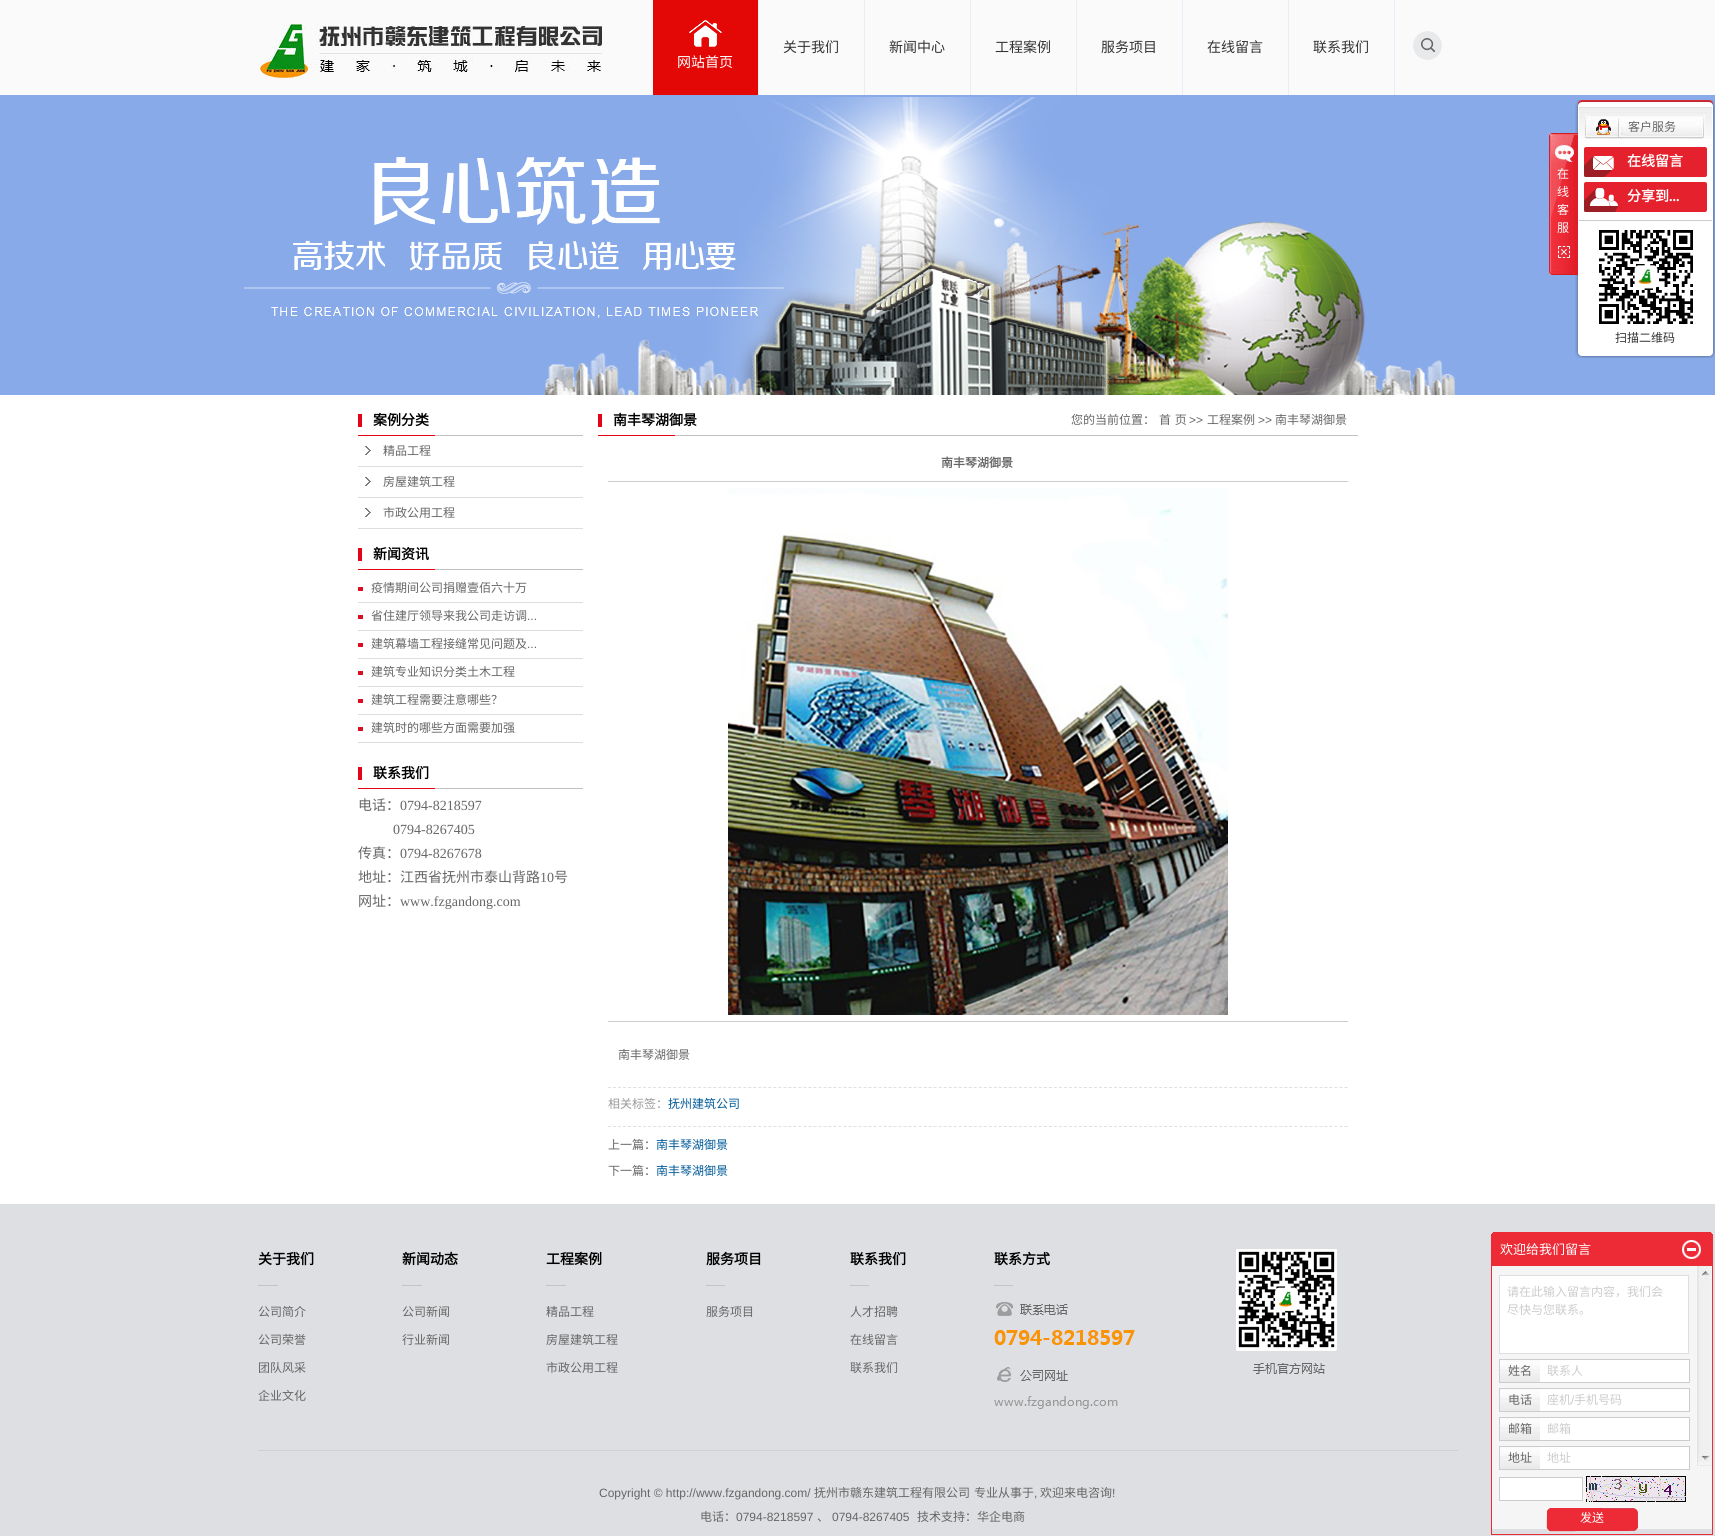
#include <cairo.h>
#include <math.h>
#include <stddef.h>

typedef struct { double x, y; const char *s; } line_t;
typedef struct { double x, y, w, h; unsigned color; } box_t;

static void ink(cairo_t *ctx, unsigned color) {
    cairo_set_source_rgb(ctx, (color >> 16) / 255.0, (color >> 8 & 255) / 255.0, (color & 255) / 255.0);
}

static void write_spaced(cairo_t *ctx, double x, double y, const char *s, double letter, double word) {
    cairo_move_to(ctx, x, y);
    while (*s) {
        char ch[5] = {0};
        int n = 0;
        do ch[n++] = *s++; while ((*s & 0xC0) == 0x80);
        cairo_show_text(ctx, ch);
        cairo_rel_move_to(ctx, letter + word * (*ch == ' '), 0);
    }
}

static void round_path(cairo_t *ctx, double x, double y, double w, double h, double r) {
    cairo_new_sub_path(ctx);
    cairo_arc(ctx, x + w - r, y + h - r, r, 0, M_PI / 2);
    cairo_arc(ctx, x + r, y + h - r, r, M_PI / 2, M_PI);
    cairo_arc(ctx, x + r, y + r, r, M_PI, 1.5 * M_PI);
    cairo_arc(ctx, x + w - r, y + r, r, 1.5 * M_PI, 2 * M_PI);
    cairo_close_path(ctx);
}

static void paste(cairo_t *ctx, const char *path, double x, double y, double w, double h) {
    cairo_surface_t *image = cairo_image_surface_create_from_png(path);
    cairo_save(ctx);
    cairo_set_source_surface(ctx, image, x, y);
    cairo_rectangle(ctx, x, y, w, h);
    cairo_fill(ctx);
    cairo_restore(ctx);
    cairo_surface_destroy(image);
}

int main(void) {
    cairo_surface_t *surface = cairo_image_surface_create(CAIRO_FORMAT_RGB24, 1715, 1536);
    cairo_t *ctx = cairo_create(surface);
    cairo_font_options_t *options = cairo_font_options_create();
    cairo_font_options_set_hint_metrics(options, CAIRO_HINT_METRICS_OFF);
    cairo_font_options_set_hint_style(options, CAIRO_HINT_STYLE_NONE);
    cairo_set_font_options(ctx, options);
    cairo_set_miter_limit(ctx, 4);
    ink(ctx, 0xFFFFFF);
    cairo_paint(ctx);
    ink(ctx, 0xFAFAFA);
    cairo_rectangle(ctx, 0, 0, 1715, 95);
    cairo_fill(ctx);
    paste(ctx, "media/1.png", 258, 24, 344, 56);
    ink(ctx, 0xE9EDF5);
    cairo_rectangle(ctx, 864, 0, 1, 95);
    cairo_fill(ctx);
    cairo_select_font_face(ctx, "Noto Sans CJK SC", CAIRO_FONT_SLANT_NORMAL, CAIRO_FONT_WEIGHT_NORMAL);
    cairo_set_font_size(ctx, 14);
    ink(ctx, 0x333333);
    cairo_move_to(ctx, 783, 52);
    cairo_show_text(ctx, "关于我们");
    ink(ctx, 0xE9EDF5);
    cairo_rectangle(ctx, 970, 0, 1, 95);
    cairo_fill(ctx);
    ink(ctx, 0x333333);
    cairo_move_to(ctx, 889, 52);
    cairo_show_text(ctx, "新闻中心");
    ink(ctx, 0xE9EDF5);
    cairo_rectangle(ctx, 1076, 0, 1, 95);
    cairo_fill(ctx);
    ink(ctx, 0x333333);
    cairo_move_to(ctx, 995, 52);
    cairo_show_text(ctx, "工程案例");
    ink(ctx, 0xE9EDF5);
    cairo_rectangle(ctx, 1182, 0, 1, 95);
    cairo_fill(ctx);
    ink(ctx, 0x333333);
    cairo_move_to(ctx, 1101, 52);
    cairo_show_text(ctx, "服务项目");
    ink(ctx, 0xE9EDF5);
    cairo_rectangle(ctx, 1288, 0, 1, 95);
    cairo_fill(ctx);
    ink(ctx, 0x333333);
    cairo_move_to(ctx, 1207, 52);
    cairo_show_text(ctx, "在线留言");
    ink(ctx, 0xE9EDF5);
    cairo_rectangle(ctx, 1394, 0, 1, 95);
    cairo_fill(ctx);
    ink(ctx, 0x333333);
    cairo_move_to(ctx, 1313, 52);
    cairo_show_text(ctx, "联系我们");
    ink(ctx, 0xE9EDF5);
    cairo_rectangle(ctx, 758, 0, 1, 95);
    cairo_fill(ctx);
    ink(ctx, 0xE30806);
    cairo_rectangle(ctx, 653, 0, 105, 95);
    cairo_fill(ctx);
    paste(ctx, "media/2.png", 689, 20, 33, 27);
    ink(ctx, 0xFFFFFF);
    cairo_move_to(ctx, 677, 67);
    cairo_show_text(ctx, "网站首页");
    paste(ctx, "media/3.png", 1413, 31, 29, 29);
    paste(ctx, "media/4.png", 0, 95, 1715, 300);
    paste(ctx, "media/8.png", 1575, 107, 140, 243);
    paste(ctx, "media/5.png", 1549, 133, 29, 142);
    cairo_set_font_size(ctx, 12);
    {
        static const line_t items[] = {
            {1557, 178, "在"},
            {1557, 196, "线"},
            {1557, 214, "客"},
            {1557, 232, "服"},
        };
        for (size_t i = 0; i < sizeof items / sizeof *items; i++) {
            cairo_move_to(ctx, items[i].x, items[i].y);
            cairo_show_text(ctx, items[i].s);
        }
    }
    paste(ctx, "media/6.png", 1558, 246, 12, 12);
    paste(ctx, "media/7.png", 1575, 100, 140, 7);
    paste(ctx, "media/9.png", 1579, 107, 133, 32);
    paste(ctx, "media/10.png", 1585, 115, 120, 24);
    paste(ctx, "media/11.png", 1596, 119, 15, 16);
    ink(ctx, 0x666666);
    cairo_move_to(ctx, 1628, 131);
    cairo_show_text(ctx, "客户服务");
    ink(ctx, 0xE5212D);
    round_path(ctx, 1584, 147, 123, 30, 2);
    cairo_fill(ctx);
    paste(ctx, "media/12.png", 1584, 156, 30, 21);
    cairo_select_font_face(ctx, "Noto Sans CJK SC", CAIRO_FONT_SLANT_NORMAL, CAIRO_FONT_WEIGHT_BOLD);
    cairo_set_font_size(ctx, 14);
    ink(ctx, 0xFFFFFF);
    cairo_move_to(ctx, 1627, 166);
    cairo_show_text(ctx, "在线留言");
    ink(ctx, 0xE5212D);
    round_path(ctx, 1584, 182, 123, 30, 2);
    cairo_fill(ctx);
    paste(ctx, "media/13.png", 1584, 188, 34, 24);
    ink(ctx, 0xFFFFFF);
    cairo_move_to(ctx, 1627, 201);
    cairo_show_text(ctx, "分享到");
    cairo_select_font_face(ctx, "Liberation Serif", CAIRO_FONT_SLANT_NORMAL, CAIRO_FONT_WEIGHT_BOLD);
    cairo_move_to(ctx, 1669, 201);
    cairo_show_text(ctx, "...");
    ink(ctx, 0xCCCCCC);
    cairo_rectangle(ctx, 1579, 220, 133, 1);
    cairo_fill(ctx);
    paste(ctx, "media/14.png", 1599, 230, 94, 94);
    cairo_select_font_face(ctx, "Noto Sans CJK SC", CAIRO_FONT_SLANT_NORMAL, CAIRO_FONT_WEIGHT_NORMAL);
    cairo_set_font_size(ctx, 12);
    ink(ctx, 0x333333);
    cairo_move_to(ctx, 1615, 342);
    cairo_show_text(ctx, "扫描二维码");
    paste(ctx, "media/15.png", 1575, 350, 140, 8);
    paste(ctx, "media/16.png", 358, 414, 225, 22);
    cairo_select_font_face(ctx, "Noto Sans CJK SC", CAIRO_FONT_SLANT_NORMAL, CAIRO_FONT_WEIGHT_BOLD);
    cairo_set_font_size(ctx, 14);
    ink(ctx, 0x000000);
    cairo_move_to(ctx, 373, 425);
    cairo_show_text(ctx, "案例分类");
    paste(ctx, "media/17.png", 365, 446, 6, 9);
    ink(ctx, 0xDDDDDD);
    cairo_rectangle(ctx, 358, 466, 225, 1);
    cairo_fill(ctx);
    cairo_select_font_face(ctx, "Noto Sans CJK SC", CAIRO_FONT_SLANT_NORMAL, CAIRO_FONT_WEIGHT_NORMAL);
    cairo_set_font_size(ctx, 12);
    ink(ctx, 0x666666);
    cairo_move_to(ctx, 383, 455);
    cairo_show_text(ctx, "精品工程");
    paste(ctx, "media/17.png", 365, 477, 6, 9);
    ink(ctx, 0xDDDDDD);
    cairo_rectangle(ctx, 358, 497, 225, 1);
    cairo_fill(ctx);
    ink(ctx, 0x666666);
    cairo_move_to(ctx, 383, 486);
    cairo_show_text(ctx, "房屋建筑工程");
    paste(ctx, "media/17.png", 365, 508, 6, 9);
    ink(ctx, 0xDDDDDD);
    cairo_rectangle(ctx, 358, 528, 225, 1);
    cairo_fill(ctx);
    ink(ctx, 0x666666);
    cairo_move_to(ctx, 383, 517);
    cairo_show_text(ctx, "市政公用工程");
    paste(ctx, "media/16.png", 358, 548, 225, 22);
    cairo_select_font_face(ctx, "Noto Sans CJK SC", CAIRO_FONT_SLANT_NORMAL, CAIRO_FONT_WEIGHT_BOLD);
    cairo_set_font_size(ctx, 14);
    ink(ctx, 0x000000);
    cairo_move_to(ctx, 373, 559);
    cairo_show_text(ctx, "新闻资讯");
    paste(ctx, "media/18.png", 358, 587, 5, 4);
    ink(ctx, 0xDDDDDD);
    cairo_rectangle(ctx, 358, 602, 225, 1);
    cairo_fill(ctx);
    cairo_select_font_face(ctx, "Noto Sans CJK SC", CAIRO_FONT_SLANT_NORMAL, CAIRO_FONT_WEIGHT_NORMAL);
    cairo_set_font_size(ctx, 12);
    ink(ctx, 0x666666);
    cairo_move_to(ctx, 371, 592);
    cairo_show_text(ctx, "疫情期间公司捐赠壹佰六十万");
    paste(ctx, "media/18.png", 358, 615, 5, 4);
    ink(ctx, 0xDDDDDD);
    cairo_rectangle(ctx, 358, 630, 225, 1);
    cairo_fill(ctx);
    ink(ctx, 0x666666);
    cairo_move_to(ctx, 371, 620);
    cairo_show_text(ctx, "省住建厅领导来我公司走访调");
    cairo_select_font_face(ctx, "Liberation Sans", CAIRO_FONT_SLANT_NORMAL, CAIRO_FONT_WEIGHT_NORMAL);
    cairo_move_to(ctx, 527, 620);
    cairo_show_text(ctx, "...");
    paste(ctx, "media/18.png", 358, 643, 5, 4);
    ink(ctx, 0xDDDDDD);
    cairo_rectangle(ctx, 358, 658, 225, 1);
    cairo_fill(ctx);
    cairo_select_font_face(ctx, "Noto Sans CJK SC", CAIRO_FONT_SLANT_NORMAL, CAIRO_FONT_WEIGHT_NORMAL);
    ink(ctx, 0x666666);
    cairo_move_to(ctx, 371, 648);
    cairo_show_text(ctx, "建筑幕墙工程接缝常见问题及");
    cairo_select_font_face(ctx, "Liberation Sans", CAIRO_FONT_SLANT_NORMAL, CAIRO_FONT_WEIGHT_NORMAL);
    cairo_move_to(ctx, 527, 648);
    cairo_show_text(ctx, "...");
    paste(ctx, "media/18.png", 358, 671, 5, 4);
    ink(ctx, 0xDDDDDD);
    cairo_rectangle(ctx, 358, 686, 225, 1);
    cairo_fill(ctx);
    cairo_select_font_face(ctx, "Noto Sans CJK SC", CAIRO_FONT_SLANT_NORMAL, CAIRO_FONT_WEIGHT_NORMAL);
    ink(ctx, 0x666666);
    cairo_move_to(ctx, 371, 676);
    cairo_show_text(ctx, "建筑专业知识分类土木工程");
    paste(ctx, "media/18.png", 358, 699, 5, 4);
    ink(ctx, 0xDDDDDD);
    cairo_rectangle(ctx, 358, 714, 225, 1);
    cairo_fill(ctx);
    ink(ctx, 0x666666);
    cairo_move_to(ctx, 371, 704);
    cairo_show_text(ctx, "建筑工程需要注意哪些？");
    paste(ctx, "media/18.png", 358, 727, 5, 4);
    ink(ctx, 0xDDDDDD);
    cairo_rectangle(ctx, 358, 742, 225, 1);
    cairo_fill(ctx);
    ink(ctx, 0x666666);
    cairo_move_to(ctx, 371, 732);
    cairo_show_text(ctx, "建筑时的哪些方面需要加强");
    paste(ctx, "media/16.png", 358, 767, 225, 22);
    cairo_select_font_face(ctx, "Noto Sans CJK SC", CAIRO_FONT_SLANT_NORMAL, CAIRO_FONT_WEIGHT_BOLD);
    cairo_set_font_size(ctx, 14);
    ink(ctx, 0x000000);
    cairo_move_to(ctx, 373, 778);
    cairo_show_text(ctx, "联系我们");
    cairo_select_font_face(ctx, "Noto Sans CJK SC", CAIRO_FONT_SLANT_NORMAL, CAIRO_FONT_WEIGHT_NORMAL);
    ink(ctx, 0x666666);
    cairo_move_to(ctx, 358, 810);
    cairo_show_text(ctx, "电话：");
    cairo_select_font_face(ctx, "Liberation Serif", CAIRO_FONT_SLANT_NORMAL, CAIRO_FONT_WEIGHT_NORMAL);
    cairo_move_to(ctx, 400, 810);
    cairo_show_text(ctx, "0794-8218597");
    cairo_move_to(ctx, 393, 834);
    cairo_show_text(ctx, "0794-8267405");
    cairo_select_font_face(ctx, "Noto Sans CJK SC", CAIRO_FONT_SLANT_NORMAL, CAIRO_FONT_WEIGHT_NORMAL);
    cairo_move_to(ctx, 358, 858);
    cairo_show_text(ctx, "传真：");
    cairo_select_font_face(ctx, "Liberation Serif", CAIRO_FONT_SLANT_NORMAL, CAIRO_FONT_WEIGHT_NORMAL);
    cairo_move_to(ctx, 400, 858);
    cairo_show_text(ctx, "0794-8267678");
    cairo_select_font_face(ctx, "Noto Sans CJK SC", CAIRO_FONT_SLANT_NORMAL, CAIRO_FONT_WEIGHT_NORMAL);
    cairo_move_to(ctx, 358, 882);
    cairo_show_text(ctx, "地址：江西省抚州市泰山背路");
    cairo_select_font_face(ctx, "Liberation Serif", CAIRO_FONT_SLANT_NORMAL, CAIRO_FONT_WEIGHT_NORMAL);
    cairo_move_to(ctx, 540, 882);
    cairo_show_text(ctx, "10");
    cairo_select_font_face(ctx, "Noto Sans CJK SC", CAIRO_FONT_SLANT_NORMAL, CAIRO_FONT_WEIGHT_NORMAL);
    cairo_move_to(ctx, 554, 882);
    cairo_show_text(ctx, "号");
    cairo_move_to(ctx, 358, 906);
    cairo_show_text(ctx, "网址：");
    cairo_select_font_face(ctx, "Liberation Serif", CAIRO_FONT_SLANT_NORMAL, CAIRO_FONT_WEIGHT_NORMAL);
    cairo_move_to(ctx, 400, 906);
    cairo_show_text(ctx, "www.fzgandong.com");
    paste(ctx, "media/19.png", 598, 414, 760, 22);
    cairo_select_font_face(ctx, "Noto Sans CJK SC", CAIRO_FONT_SLANT_NORMAL, CAIRO_FONT_WEIGHT_BOLD);
    ink(ctx, 0x000000);
    cairo_move_to(ctx, 613, 425);
    cairo_show_text(ctx, "南丰琴湖御景");
    cairo_select_font_face(ctx, "Noto Sans CJK SC", CAIRO_FONT_SLANT_NORMAL, CAIRO_FONT_WEIGHT_NORMAL);
    cairo_set_font_size(ctx, 12);
    ink(ctx, 0x666666);
    cairo_move_to(ctx, 1071, 424);
    cairo_show_text(ctx, "您的当前位置：");
    write_spaced(ctx, 1159, 424, "首 页", 0, 1);
    cairo_select_font_face(ctx, "Liberation Sans", CAIRO_FONT_SLANT_NORMAL, CAIRO_FONT_WEIGHT_NORMAL);
    cairo_move_to(ctx, 1189, 424);
    cairo_show_text(ctx, ">>");
    cairo_select_font_face(ctx, "Noto Sans CJK SC", CAIRO_FONT_SLANT_NORMAL, CAIRO_FONT_WEIGHT_NORMAL);
    cairo_move_to(ctx, 1207, 424);
    cairo_show_text(ctx, "工程案例");
    cairo_select_font_face(ctx, "Liberation Sans", CAIRO_FONT_SLANT_NORMAL, CAIRO_FONT_WEIGHT_NORMAL);
    cairo_move_to(ctx, 1258, 424);
    cairo_show_text(ctx, ">>");
    cairo_select_font_face(ctx, "Noto Sans CJK SC", CAIRO_FONT_SLANT_NORMAL, CAIRO_FONT_WEIGHT_NORMAL);
    cairo_move_to(ctx, 1275, 424);
    cairo_show_text(ctx, "南丰琴湖御景");
    cairo_select_font_face(ctx, "Noto Sans CJK SC", CAIRO_FONT_SLANT_NORMAL, CAIRO_FONT_WEIGHT_BOLD);
    cairo_move_to(ctx, 941, 467);
    cairo_show_text(ctx, "南丰琴湖御景");
    ink(ctx, 0xCCCCCC);
    cairo_rectangle(ctx, 608, 481, 740, 1);
    cairo_fill(ctx);
    paste(ctx, "media/20.png", 728, 488, 500, 527);
    cairo_rectangle(ctx, 608, 1021, 740, 1);
    cairo_fill(ctx);
    cairo_select_font_face(ctx, "Noto Sans CJK SC", CAIRO_FONT_SLANT_NORMAL, CAIRO_FONT_WEIGHT_NORMAL);
    ink(ctx, 0x666666);
    cairo_move_to(ctx, 618, 1059);
    cairo_show_text(ctx, "南丰琴湖御景");
    cairo_new_path(ctx);
    cairo_move_to(ctx, 608, 1087.5);
    cairo_line_to(ctx, 1348, 1087.5);
    ink(ctx, 0xE0E1DC);
    cairo_set_line_width(ctx, 1);
    cairo_set_dash(ctx, (double[]){3, 2.01}, 2, 0);
    cairo_stroke(ctx);
    ink(ctx, 0x999999);
    cairo_move_to(ctx, 608, 1108);
    cairo_show_text(ctx, "相关标签：");
    ink(ctx, 0x005A98);
    cairo_move_to(ctx, 668, 1108);
    cairo_show_text(ctx, "抚州建筑公司");
    cairo_new_path(ctx);
    cairo_move_to(ctx, 608, 1126.5);
    cairo_line_to(ctx, 1348, 1126.5);
    ink(ctx, 0xE0E1DC);
    cairo_stroke(ctx);
    ink(ctx, 0x666666);
    cairo_move_to(ctx, 608, 1149);
    cairo_show_text(ctx, "上一篇：");
    ink(ctx, 0x005A98);
    cairo_move_to(ctx, 656, 1149);
    cairo_show_text(ctx, "南丰琴湖御景");
    ink(ctx, 0x666666);
    cairo_move_to(ctx, 608, 1175);
    cairo_show_text(ctx, "下一篇：");
    ink(ctx, 0x005A98);
    cairo_move_to(ctx, 656, 1175);
    cairo_show_text(ctx, "南丰琴湖御景");
    ink(ctx, 0xDEDFE2);
    cairo_rectangle(ctx, 0, 1204, 1715, 332);
    cairo_fill(ctx);
    ink(ctx, 0xC4C5C6);
    cairo_rectangle(ctx, 258, 1285, 20, 1);
    cairo_fill(ctx);
    cairo_select_font_face(ctx, "Noto Sans CJK SC", CAIRO_FONT_SLANT_NORMAL, CAIRO_FONT_WEIGHT_BOLD);
    cairo_set_font_size(ctx, 14);
    ink(ctx, 0x000000);
    cairo_move_to(ctx, 258, 1264);
    cairo_show_text(ctx, "关于我们");
    cairo_select_font_face(ctx, "Noto Sans CJK SC", CAIRO_FONT_SLANT_NORMAL, CAIRO_FONT_WEIGHT_NORMAL);
    cairo_set_font_size(ctx, 12);
    ink(ctx, 0x666666);
    {
        static const line_t items[] = {
            {258, 1316, "公司简介"},
            {258, 1344, "公司荣誉"},
            {258, 1372, "团队风采"},
            {258, 1400, "企业文化"},
        };
        for (size_t i = 0; i < sizeof items / sizeof *items; i++) {
            cairo_move_to(ctx, items[i].x, items[i].y);
            cairo_show_text(ctx, items[i].s);
        }
    }
    ink(ctx, 0xC4C5C6);
    cairo_rectangle(ctx, 402, 1285, 20, 1);
    cairo_fill(ctx);
    cairo_select_font_face(ctx, "Noto Sans CJK SC", CAIRO_FONT_SLANT_NORMAL, CAIRO_FONT_WEIGHT_BOLD);
    cairo_set_font_size(ctx, 14);
    ink(ctx, 0x000000);
    cairo_move_to(ctx, 402, 1264);
    cairo_show_text(ctx, "新闻动态");
    cairo_select_font_face(ctx, "Noto Sans CJK SC", CAIRO_FONT_SLANT_NORMAL, CAIRO_FONT_WEIGHT_NORMAL);
    cairo_set_font_size(ctx, 12);
    ink(ctx, 0x666666);
    cairo_move_to(ctx, 402, 1316);
    cairo_show_text(ctx, "公司新闻");
    cairo_move_to(ctx, 402, 1344);
    cairo_show_text(ctx, "行业新闻");
    ink(ctx, 0xC4C5C6);
    cairo_rectangle(ctx, 546, 1285, 20, 1);
    cairo_fill(ctx);
    cairo_select_font_face(ctx, "Noto Sans CJK SC", CAIRO_FONT_SLANT_NORMAL, CAIRO_FONT_WEIGHT_BOLD);
    cairo_set_font_size(ctx, 14);
    ink(ctx, 0x000000);
    cairo_move_to(ctx, 546, 1264);
    cairo_show_text(ctx, "工程案例");
    cairo_select_font_face(ctx, "Noto Sans CJK SC", CAIRO_FONT_SLANT_NORMAL, CAIRO_FONT_WEIGHT_NORMAL);
    cairo_set_font_size(ctx, 12);
    ink(ctx, 0x666666);
    {
        static const line_t items[] = {
            {546, 1316, "精品工程"},
            {546, 1344, "房屋建筑工程"},
            {546, 1372, "市政公用工程"},
        };
        for (size_t i = 0; i < sizeof items / sizeof *items; i++) {
            cairo_move_to(ctx, items[i].x, items[i].y);
            cairo_show_text(ctx, items[i].s);
        }
    }
    ink(ctx, 0xC4C5C6);
    cairo_rectangle(ctx, 706, 1285, 19, 1);
    cairo_fill(ctx);
    cairo_select_font_face(ctx, "Noto Sans CJK SC", CAIRO_FONT_SLANT_NORMAL, CAIRO_FONT_WEIGHT_BOLD);
    cairo_set_font_size(ctx, 14);
    ink(ctx, 0x000000);
    cairo_move_to(ctx, 706, 1264);
    cairo_show_text(ctx, "服务项目");
    cairo_select_font_face(ctx, "Noto Sans CJK SC", CAIRO_FONT_SLANT_NORMAL, CAIRO_FONT_WEIGHT_NORMAL);
    cairo_set_font_size(ctx, 12);
    ink(ctx, 0x666666);
    cairo_move_to(ctx, 706, 1316);
    cairo_show_text(ctx, "服务项目");
    ink(ctx, 0xC4C5C6);
    cairo_rectangle(ctx, 850, 1285, 19, 1);
    cairo_fill(ctx);
    cairo_select_font_face(ctx, "Noto Sans CJK SC", CAIRO_FONT_SLANT_NORMAL, CAIRO_FONT_WEIGHT_BOLD);
    cairo_set_font_size(ctx, 14);
    ink(ctx, 0x000000);
    cairo_move_to(ctx, 850, 1264);
    cairo_show_text(ctx, "联系我们");
    cairo_select_font_face(ctx, "Noto Sans CJK SC", CAIRO_FONT_SLANT_NORMAL, CAIRO_FONT_WEIGHT_NORMAL);
    cairo_set_font_size(ctx, 12);
    ink(ctx, 0x666666);
    {
        static const line_t items[] = {
            {850, 1316, "人才招聘"},
            {850, 1344, "在线留言"},
            {850, 1372, "联系我们"},
        };
        for (size_t i = 0; i < sizeof items / sizeof *items; i++) {
            cairo_move_to(ctx, items[i].x, items[i].y);
            cairo_show_text(ctx, items[i].s);
        }
    }
    ink(ctx, 0xC4C5C6);
    cairo_rectangle(ctx, 994, 1285, 19, 1);
    cairo_fill(ctx);
    cairo_select_font_face(ctx, "Noto Sans CJK SC", CAIRO_FONT_SLANT_NORMAL, CAIRO_FONT_WEIGHT_BOLD);
    cairo_set_font_size(ctx, 14);
    ink(ctx, 0x000000);
    cairo_move_to(ctx, 994, 1264);
    cairo_show_text(ctx, "联系方式");
    paste(ctx, "media/21.png", 994, 1302, 141, 107);
    paste(ctx, "media/22.png", 1236, 1249, 101, 125);
    ink(ctx, 0xCFD0D1);
    cairo_rectangle(ctx, 258, 1450, 1200, 1);
    cairo_fill(ctx);
    cairo_select_font_face(ctx, "Liberation Sans", CAIRO_FONT_SLANT_NORMAL, CAIRO_FONT_WEIGHT_NORMAL);
    cairo_set_font_size(ctx, 12);
    ink(ctx, 0x666666);
    cairo_move_to(ctx, 599, 1497);
    cairo_show_text(ctx, "Copyright © http://www.fzgandong.com/");
    cairo_select_font_face(ctx, "Noto Sans CJK SC", CAIRO_FONT_SLANT_NORMAL, CAIRO_FONT_WEIGHT_NORMAL);
    cairo_move_to(ctx, 814, 1497);
    cairo_show_text(ctx, "抚州市赣东建筑工程有限公司");
    cairo_move_to(ctx, 974, 1497);
    cairo_show_text(ctx, "专业从事于");
    cairo_select_font_face(ctx, "Liberation Sans", CAIRO_FONT_SLANT_NORMAL, CAIRO_FONT_WEIGHT_NORMAL);
    cairo_move_to(ctx, 1034, 1497);
    cairo_show_text(ctx, ",");
    cairo_select_font_face(ctx, "Noto Sans CJK SC", CAIRO_FONT_SLANT_NORMAL, CAIRO_FONT_WEIGHT_NORMAL);
    cairo_move_to(ctx, 1040, 1497);
    cairo_show_text(ctx, "欢迎来电咨询");
    cairo_select_font_face(ctx, "Liberation Sans", CAIRO_FONT_SLANT_NORMAL, CAIRO_FONT_WEIGHT_NORMAL);
    cairo_move_to(ctx, 1112, 1497);
    cairo_show_text(ctx, "!");
    cairo_select_font_face(ctx, "Noto Sans CJK SC", CAIRO_FONT_SLANT_NORMAL, CAIRO_FONT_WEIGHT_NORMAL);
    cairo_move_to(ctx, 700, 1521);
    cairo_show_text(ctx, "电话：");
    cairo_select_font_face(ctx, "Liberation Sans", CAIRO_FONT_SLANT_NORMAL, CAIRO_FONT_WEIGHT_NORMAL);
    cairo_move_to(ctx, 736, 1521);
    cairo_show_text(ctx, "0794-8218597");
    cairo_select_font_face(ctx, "Noto Sans CJK SC", CAIRO_FONT_SLANT_NORMAL, CAIRO_FONT_WEIGHT_NORMAL);
    cairo_move_to(ctx, 817, 1521);
    cairo_show_text(ctx, "、");
    cairo_select_font_face(ctx, "Liberation Sans", CAIRO_FONT_SLANT_NORMAL, CAIRO_FONT_WEIGHT_NORMAL);
    cairo_move_to(ctx, 832, 1521);
    cairo_show_text(ctx, "0794-8267405");
    cairo_select_font_face(ctx, "Noto Sans CJK SC", CAIRO_FONT_SLANT_NORMAL, CAIRO_FONT_WEIGHT_NORMAL);
    cairo_move_to(ctx, 917, 1521);
    cairo_show_text(ctx, "技术支持：华企电商");
    {
        static const box_t items[] = {
            {1493, 1232, 218, 1, 0xED2B36},
            {1492, 1233, 220, 1, 0xED2B36},
            {1491, 1234, 222, 31, 0xED2B36},
        };
        for (size_t i = 0; i < sizeof items / sizeof *items; i++) {
            ink(ctx, items[i].color);
            cairo_rectangle(ctx, items[i].x, items[i].y, items[i].w, items[i].h);
            cairo_fill(ctx);
        }
    }
    cairo_set_font_size(ctx, 13);
    ink(ctx, 0xFFFFFF);
    cairo_move_to(ctx, 1500, 1254);
    cairo_show_text(ctx, "欢迎给我们留言");
    paste(ctx, "media/23.png", 1682, 1240, 19, 19);
    paste(ctx, "media/24.png", 1492, 1266, 220, 263);
    cairo_rectangle(ctx, 1491.5, 1265.5, 221, 269);
    ink(ctx, 0xED2B36);
    cairo_set_dash(ctx, NULL, 0, 0);
    cairo_stroke(ctx);
    ink(ctx, 0xFFFFFF);
    cairo_rectangle(ctx, 1499.5, 1275.5, 189, 78);
    cairo_fill_preserve(ctx);
    ink(ctx, 0xDEDEDE);
    cairo_stroke(ctx);
    cairo_set_font_size(ctx, 12);
    ink(ctx, 0xCCCCCC);
    cairo_move_to(ctx, 1507, 1296);
    cairo_show_text(ctx, "请在此输入留言内容，我们会");
    cairo_move_to(ctx, 1507, 1314);
    cairo_show_text(ctx, "尽快与您联系。");
    ink(ctx, 0xFFFFFF);
    cairo_rectangle(ctx, 1540, 1360, 149, 22);
    cairo_fill(ctx);
    cairo_rectangle(ctx, 1499.5, 1359.5, 190, 23);
    ink(ctx, 0xCCCCCC);
    cairo_stroke(ctx);
    paste(ctx, "media/25.png", 1500, 1360, 40, 22);
    ink(ctx, 0x666666);
    cairo_move_to(ctx, 1508, 1375);
    cairo_show_text(ctx, "姓名");
    ink(ctx, 0xCCCCCC);
    cairo_move_to(ctx, 1547, 1375);
    cairo_show_text(ctx, "联系人");
    ink(ctx, 0xFFFFFF);
    cairo_rectangle(ctx, 1540, 1389, 149, 22);
    cairo_fill(ctx);
    cairo_rectangle(ctx, 1499.5, 1388.5, 190, 23);
    ink(ctx, 0xCCCCCC);
    cairo_stroke(ctx);
    paste(ctx, "media/25.png", 1500, 1389, 40, 22);
    ink(ctx, 0x666666);
    cairo_move_to(ctx, 1508, 1404);
    cairo_show_text(ctx, "电话");
    ink(ctx, 0xCCCCCC);
    cairo_move_to(ctx, 1547, 1404);
    cairo_show_text(ctx, "座机");
    cairo_select_font_face(ctx, "Liberation Sans", CAIRO_FONT_SLANT_NORMAL, CAIRO_FONT_WEIGHT_NORMAL);
    cairo_move_to(ctx, 1571, 1404);
    cairo_show_text(ctx, "/");
    cairo_select_font_face(ctx, "Noto Sans CJK SC", CAIRO_FONT_SLANT_NORMAL, CAIRO_FONT_WEIGHT_NORMAL);
    cairo_move_to(ctx, 1574, 1404);
    cairo_show_text(ctx, "手机号码");
    ink(ctx, 0xFFFFFF);
    cairo_rectangle(ctx, 1540, 1418, 149, 22);
    cairo_fill(ctx);
    cairo_rectangle(ctx, 1499.5, 1417.5, 190, 23);
    ink(ctx, 0xCCCCCC);
    cairo_stroke(ctx);
    paste(ctx, "media/25.png", 1500, 1418, 40, 22);
    ink(ctx, 0x666666);
    cairo_move_to(ctx, 1508, 1433);
    cairo_show_text(ctx, "邮箱");
    ink(ctx, 0xCCCCCC);
    cairo_move_to(ctx, 1547, 1433);
    cairo_show_text(ctx, "邮箱");
    ink(ctx, 0xFFFFFF);
    cairo_rectangle(ctx, 1540, 1447, 149, 22);
    cairo_fill(ctx);
    cairo_rectangle(ctx, 1499.5, 1446.5, 190, 23);
    ink(ctx, 0xCCCCCC);
    cairo_stroke(ctx);
    paste(ctx, "media/25.png", 1500, 1447, 40, 22);
    ink(ctx, 0x666666);
    cairo_move_to(ctx, 1508, 1462);
    cairo_show_text(ctx, "地址");
    ink(ctx, 0xCCCCCC);
    cairo_move_to(ctx, 1547, 1462);
    cairo_show_text(ctx, "地址");
    ink(ctx, 0xFFFFFF);
    cairo_rectangle(ctx, 1499.5, 1477.5, 83, 23);
    cairo_fill_preserve(ctx);
    ink(ctx, 0xCCCCCC);
    cairo_stroke(ctx);
    paste(ctx, "media/26.png", 1586, 1476, 100, 26);
    paste(ctx, "media/27.png", 1546, 1508, 92, 24);
    ink(ctx, 0xFFFFFF);
    cairo_move_to(ctx, 1580, 1522);
    cairo_show_text(ctx, "发送");
    cairo_surface_write_to_png(surface, "image.png");
    cairo_font_options_destroy(options);
    cairo_destroy(ctx);
    cairo_surface_destroy(surface);
    return 0;
}
